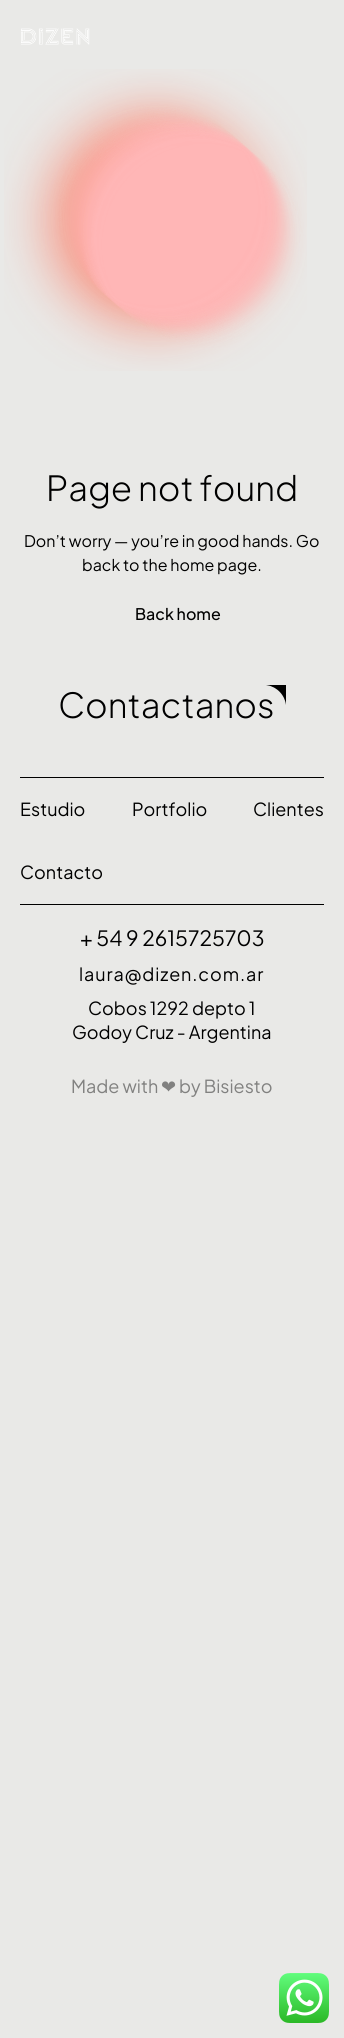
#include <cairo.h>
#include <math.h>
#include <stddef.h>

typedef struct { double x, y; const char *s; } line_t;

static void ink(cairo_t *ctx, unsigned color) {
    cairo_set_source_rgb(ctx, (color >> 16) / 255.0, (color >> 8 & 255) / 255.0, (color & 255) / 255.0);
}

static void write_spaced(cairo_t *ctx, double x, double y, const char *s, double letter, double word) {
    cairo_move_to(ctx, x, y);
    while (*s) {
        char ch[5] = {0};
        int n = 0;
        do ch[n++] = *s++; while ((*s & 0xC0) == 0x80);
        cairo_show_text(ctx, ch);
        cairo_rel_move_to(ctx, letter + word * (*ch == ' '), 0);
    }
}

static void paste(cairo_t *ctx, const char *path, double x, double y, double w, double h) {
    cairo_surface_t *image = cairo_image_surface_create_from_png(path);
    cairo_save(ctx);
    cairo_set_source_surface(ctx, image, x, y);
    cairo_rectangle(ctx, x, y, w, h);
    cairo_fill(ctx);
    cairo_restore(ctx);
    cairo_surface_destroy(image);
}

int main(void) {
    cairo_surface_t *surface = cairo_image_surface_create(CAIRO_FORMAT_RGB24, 344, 2038);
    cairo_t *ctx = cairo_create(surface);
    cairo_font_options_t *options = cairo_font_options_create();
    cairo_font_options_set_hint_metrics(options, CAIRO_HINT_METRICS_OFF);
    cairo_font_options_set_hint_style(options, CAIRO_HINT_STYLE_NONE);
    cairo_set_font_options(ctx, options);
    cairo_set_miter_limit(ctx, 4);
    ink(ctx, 0xE9E9E7);
    cairo_paint(ctx);
    paste(ctx, "media/1.png", 21, 28, 69, 17);
    paste(ctx, "media/2.png", 4, 69, 303, 302);
    cairo_select_font_face(ctx, "Plus Jakarta Sans Light", CAIRO_FONT_SLANT_NORMAL, CAIRO_FONT_WEIGHT_NORMAL);
    cairo_set_font_size(ctx, 34.5);
    ink(ctx, 0x000000);
    cairo_move_to(ctx, 46, 501);
    cairo_show_text(ctx, "Page not found");
    cairo_select_font_face(ctx, "Plus Jakarta Sans", CAIRO_FONT_SLANT_NORMAL, CAIRO_FONT_WEIGHT_NORMAL);
    cairo_set_font_size(ctx, 16);
    cairo_move_to(ctx, 24, 547);
    cairo_show_text(ctx, "Don’t worry — you’re in good hands. Go");
    cairo_move_to(ctx, 82, 571);
    cairo_show_text(ctx, "back to the home page.");
    cairo_select_font_face(ctx, "Plus Jakarta Sans Medium", CAIRO_FONT_SLANT_NORMAL, CAIRO_FONT_WEIGHT_NORMAL);
    cairo_move_to(ctx, 135, 620);
    cairo_show_text(ctx, "Back home");
    paste(ctx, "media/3.png", 266, 685, 20, 20);
    cairo_select_font_face(ctx, "Plus Jakarta Sans Light", CAIRO_FONT_SLANT_NORMAL, CAIRO_FONT_WEIGHT_NORMAL);
    cairo_set_font_size(ctx, 34.5);
    cairo_move_to(ctx, 58, 718);
    cairo_show_text(ctx, "Contactanos");
    cairo_rectangle(ctx, 20, 777, 304, 1);
    cairo_fill(ctx);
    cairo_rectangle(ctx, 20, 904, 304, 1);
    cairo_fill(ctx);
    cairo_select_font_face(ctx, "Plus Jakarta Sans", CAIRO_FONT_SLANT_NORMAL, CAIRO_FONT_WEIGHT_NORMAL);
    cairo_set_font_size(ctx, 18);
    {
        static const line_t items[] = {
            {20, 816, "Estudio"},
            {132, 816, "Portfolio"},
            {253, 816, "Clientes"},
            {20, 879, "Contacto"},
        };
        for (size_t i = 0; i < sizeof items / sizeof *items; i++) {
            cairo_move_to(ctx, items[i].x, items[i].y);
            cairo_show_text(ctx, items[i].s);
        }
    }
    cairo_set_font_size(ctx, 21);
    cairo_move_to(ctx, 80, 946);
    cairo_show_text(ctx, "+ 54 9 2615725703");
    cairo_set_font_size(ctx, 18);
    write_spaced(ctx, 79, 981, "laura@dizen.com.ar", 0.9, 0);
    cairo_move_to(ctx, 88, 1015);
    cairo_show_text(ctx, "Cobos 1292 depto 1");
    cairo_move_to(ctx, 72, 1039);
    cairo_show_text(ctx, "Godoy Cruz - Argentina");
    ink(ctx, 0x818180);
    cairo_move_to(ctx, 71, 1093);
    cairo_show_text(ctx, "Made with");
    cairo_select_font_face(ctx, "DejaVu Sans", CAIRO_FONT_SLANT_NORMAL, CAIRO_FONT_WEIGHT_NORMAL);
    cairo_move_to(ctx, 161, 1093);
    cairo_show_text(ctx, "❤");
    cairo_select_font_face(ctx, "Plus Jakarta Sans", CAIRO_FONT_SLANT_NORMAL, CAIRO_FONT_WEIGHT_NORMAL);
    cairo_move_to(ctx, 179, 1093);
    cairo_show_text(ctx, "by Bisiesto");
    paste(ctx, "media/4.png", 279, 1973, 50, 50);
    cairo_surface_write_to_png(surface, "image.png");
    cairo_font_options_destroy(options);
    cairo_destroy(ctx);
    cairo_surface_destroy(surface);
    return 0;
}
